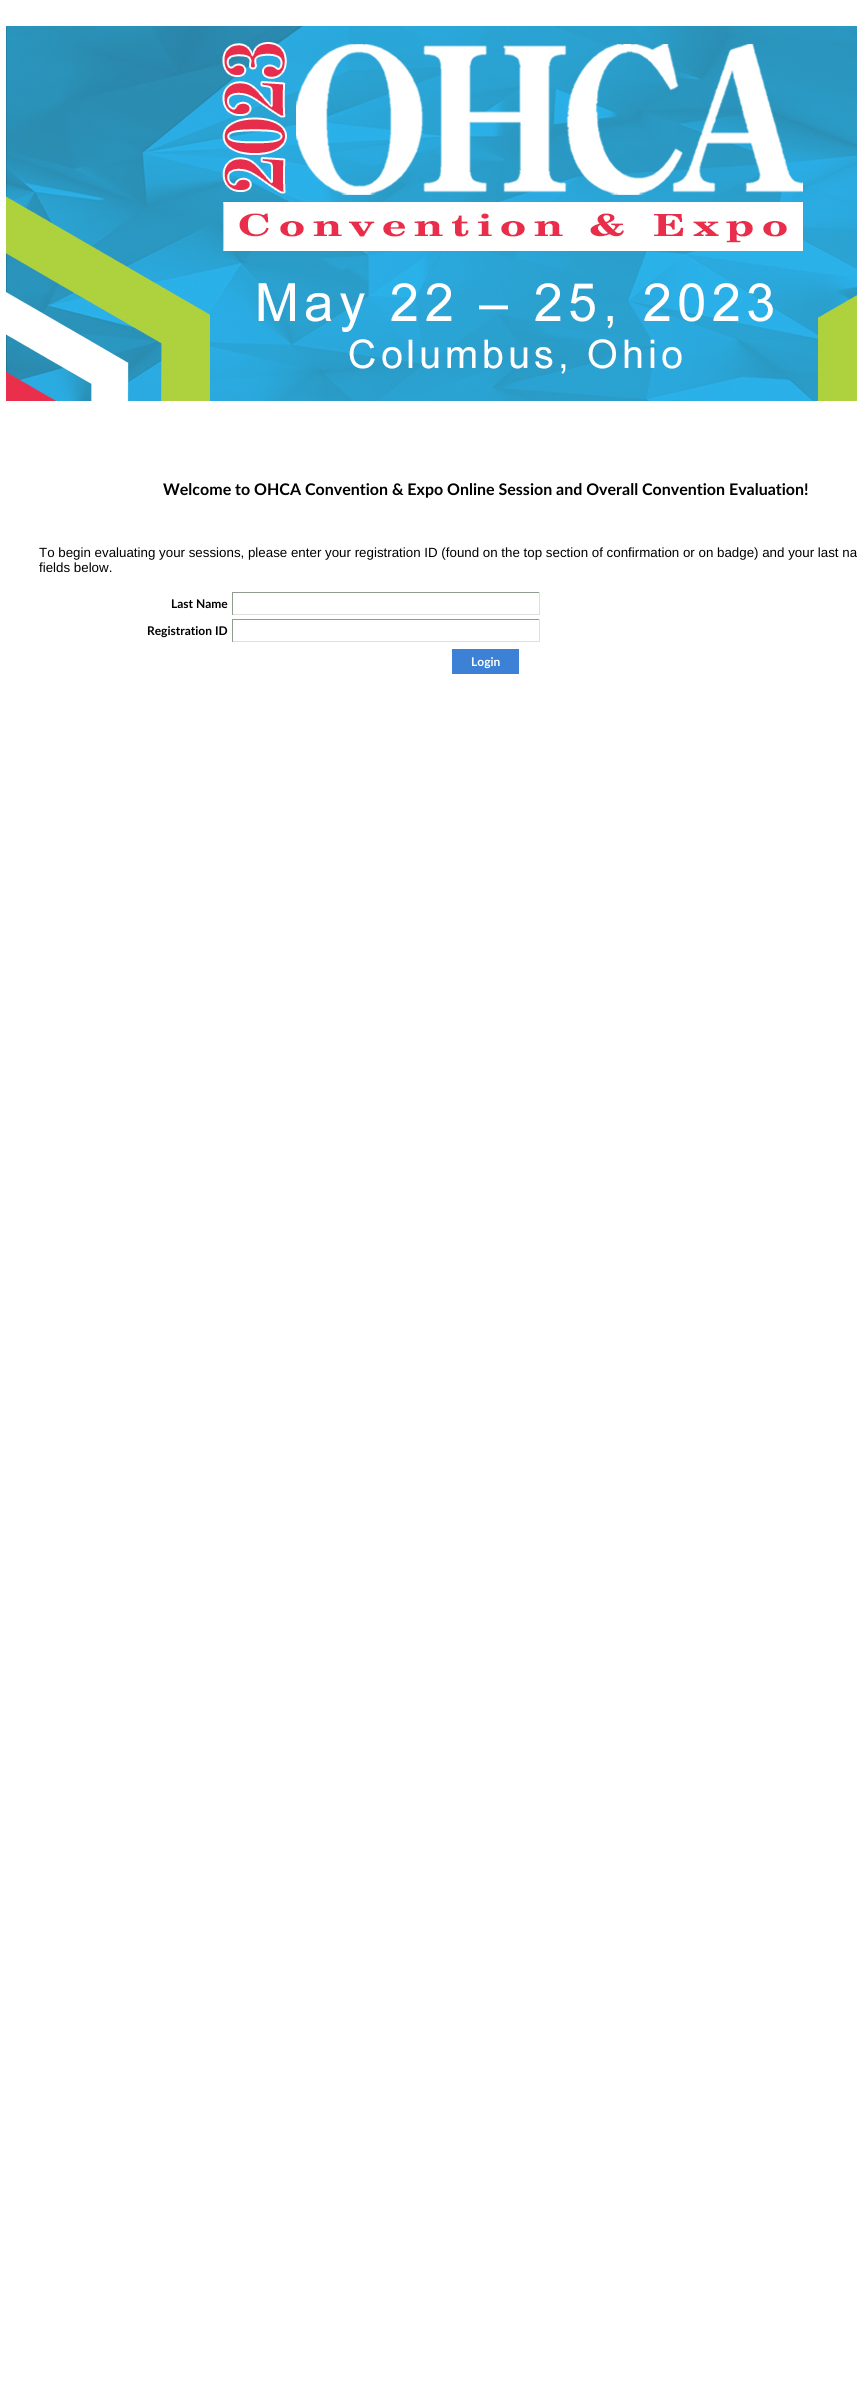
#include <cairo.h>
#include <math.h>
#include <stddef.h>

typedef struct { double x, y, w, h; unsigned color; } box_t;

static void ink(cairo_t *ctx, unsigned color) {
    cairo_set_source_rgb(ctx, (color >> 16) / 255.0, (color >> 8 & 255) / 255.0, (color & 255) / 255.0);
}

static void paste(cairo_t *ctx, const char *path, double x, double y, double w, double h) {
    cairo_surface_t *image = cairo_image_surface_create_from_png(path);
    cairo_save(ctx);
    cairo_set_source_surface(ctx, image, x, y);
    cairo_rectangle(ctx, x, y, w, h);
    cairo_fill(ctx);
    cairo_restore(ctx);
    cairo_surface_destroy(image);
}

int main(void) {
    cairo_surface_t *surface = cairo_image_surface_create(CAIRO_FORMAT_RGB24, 857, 2396);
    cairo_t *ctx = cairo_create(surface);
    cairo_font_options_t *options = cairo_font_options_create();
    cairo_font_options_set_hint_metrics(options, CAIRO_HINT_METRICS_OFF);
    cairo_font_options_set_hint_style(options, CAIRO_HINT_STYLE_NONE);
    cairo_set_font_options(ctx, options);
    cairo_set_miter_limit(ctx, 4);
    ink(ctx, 0xFFFFFF);
    cairo_paint(ctx);
    paste(ctx, "media/1.png", 6, 26, 851, 375);
    cairo_select_font_face(ctx, "Lato", CAIRO_FONT_SLANT_NORMAL, CAIRO_FONT_WEIGHT_BOLD);
    cairo_set_font_size(ctx, 16);
    ink(ctx, 0x000000);
    cairo_move_to(ctx, 163, 495);
    cairo_show_text(ctx, "Welcome to OHCA Convention & Expo Online Session and Overall Convention Evaluation!");
    cairo_select_font_face(ctx, "Liberation Sans", CAIRO_FONT_SLANT_NORMAL, CAIRO_FONT_WEIGHT_NORMAL);
    cairo_set_font_size(ctx, 13.33);
    cairo_move_to(ctx, 39, 557);
    cairo_show_text(ctx, "To begin evaluating your sessions, please enter your registration ID (found on the top section of confirmation or on badge) and your last na");
    cairo_move_to(ctx, 39, 572);
    cairo_show_text(ctx, "fields below.");
    cairo_select_font_face(ctx, "Lato", CAIRO_FONT_SLANT_NORMAL, CAIRO_FONT_WEIGHT_BOLD);
    cairo_set_font_size(ctx, 12);
    cairo_move_to(ctx, 171, 608);
    cairo_show_text(ctx, "Last Name");
    {
        static const box_t items[] = {
            {232, 592, 308, 1, 0x8F9C8F},
            {539, 592, 1, 23, 0xDFDFDF},
            {232, 614, 308, 1, 0xDFDFDF},
            {232, 592, 1, 23, 0x8F9C8F},
        };
        for (size_t i = 0; i < sizeof items / sizeof *items; i++) {
            ink(ctx, items[i].color);
            cairo_rectangle(ctx, items[i].x, items[i].y, items[i].w, items[i].h);
            cairo_fill(ctx);
        }
    }
    ink(ctx, 0x000000);
    cairo_move_to(ctx, 147, 635);
    cairo_show_text(ctx, "Registration ID");
    {
        static const box_t items[] = {
            {232, 619, 308, 1, 0x8F9C8F},
            {539, 619, 1, 23, 0xDFDFDF},
            {232, 641, 308, 1, 0xDFDFDF},
            {232, 619, 1, 23, 0x8F9C8F},
            {452, 649, 67, 25, 0x3C81D5},
        };
        for (size_t i = 0; i < sizeof items / sizeof *items; i++) {
            ink(ctx, items[i].color);
            cairo_rectangle(ctx, items[i].x, items[i].y, items[i].w, items[i].h);
            cairo_fill(ctx);
        }
    }
    ink(ctx, 0xFFFFFF);
    cairo_move_to(ctx, 471, 666);
    cairo_show_text(ctx, "Login");
    cairo_surface_write_to_png(surface, "image.png");
    cairo_font_options_destroy(options);
    cairo_destroy(ctx);
    cairo_surface_destroy(surface);
    return 0;
}
